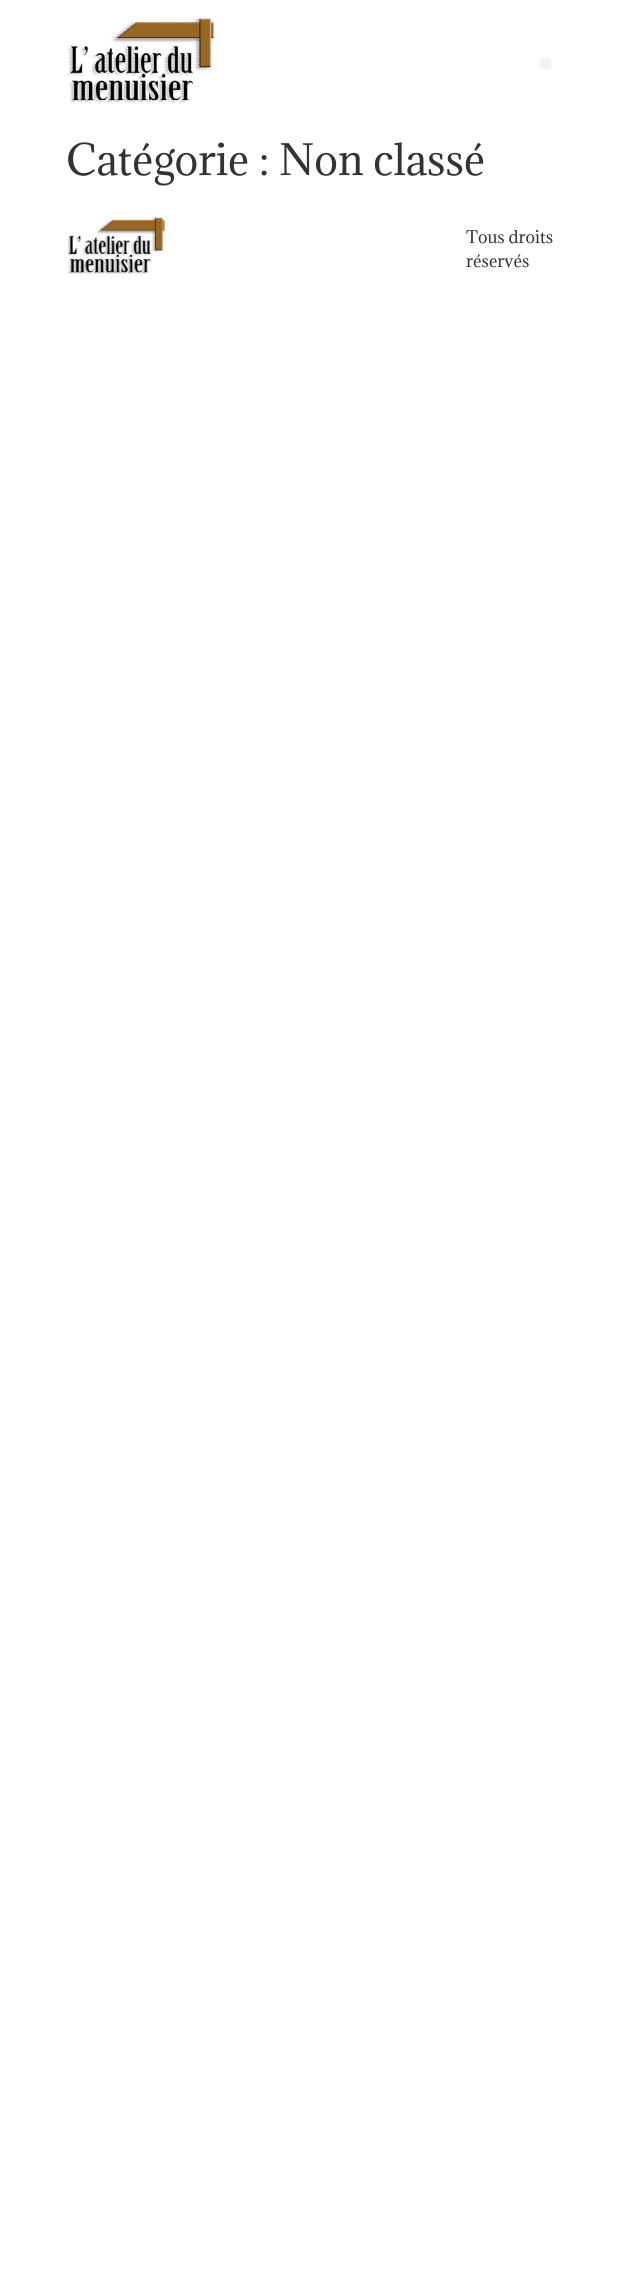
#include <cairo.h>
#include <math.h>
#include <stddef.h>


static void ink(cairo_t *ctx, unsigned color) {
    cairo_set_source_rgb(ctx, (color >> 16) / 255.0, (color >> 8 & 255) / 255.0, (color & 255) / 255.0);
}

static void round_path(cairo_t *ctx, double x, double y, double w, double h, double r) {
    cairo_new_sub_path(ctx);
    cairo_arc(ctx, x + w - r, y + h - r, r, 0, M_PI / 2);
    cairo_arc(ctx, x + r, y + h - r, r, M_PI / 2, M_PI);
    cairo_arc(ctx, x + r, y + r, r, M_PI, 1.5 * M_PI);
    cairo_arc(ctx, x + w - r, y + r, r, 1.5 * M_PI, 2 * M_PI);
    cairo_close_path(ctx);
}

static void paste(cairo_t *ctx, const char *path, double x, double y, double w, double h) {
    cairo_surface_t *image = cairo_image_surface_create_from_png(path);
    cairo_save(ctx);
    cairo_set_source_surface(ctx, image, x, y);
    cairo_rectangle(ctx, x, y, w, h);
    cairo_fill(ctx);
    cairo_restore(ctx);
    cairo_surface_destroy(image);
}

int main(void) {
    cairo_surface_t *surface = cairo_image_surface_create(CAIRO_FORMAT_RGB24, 632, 2292);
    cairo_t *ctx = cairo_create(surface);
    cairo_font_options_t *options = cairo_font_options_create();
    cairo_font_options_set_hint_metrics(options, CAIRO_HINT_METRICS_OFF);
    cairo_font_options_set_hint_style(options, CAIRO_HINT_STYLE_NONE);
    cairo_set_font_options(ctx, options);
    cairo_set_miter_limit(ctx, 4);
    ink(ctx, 0xFFFFFF);
    cairo_paint(ctx);
    paste(ctx, "media/1.png", 67, 17, 149, 87);
    ink(ctx, 0xF2F2F2);
    round_path(ctx, 540, 58, 11, 11, 3);
    cairo_fill(ctx);
    cairo_select_font_face(ctx, "Adamina", CAIRO_FONT_SLANT_NORMAL, CAIRO_FONT_WEIGHT_NORMAL);
    cairo_set_font_size(ctx, 40);
    ink(ctx, 0x333333);
    cairo_move_to(ctx, 66, 175);
    cairo_show_text(ctx, "Catégorie : Non classé");
    paste(ctx, "media/2.png", 67, 216, 99, 59);
    cairo_set_font_size(ctx, 16);
    cairo_move_to(ctx, 466, 243);
    cairo_show_text(ctx, "Tous droits");
    cairo_move_to(ctx, 466, 267);
    cairo_show_text(ctx, "réservés");
    cairo_surface_write_to_png(surface, "image.png");
    cairo_font_options_destroy(options);
    cairo_destroy(ctx);
    cairo_surface_destroy(surface);
    return 0;
}
